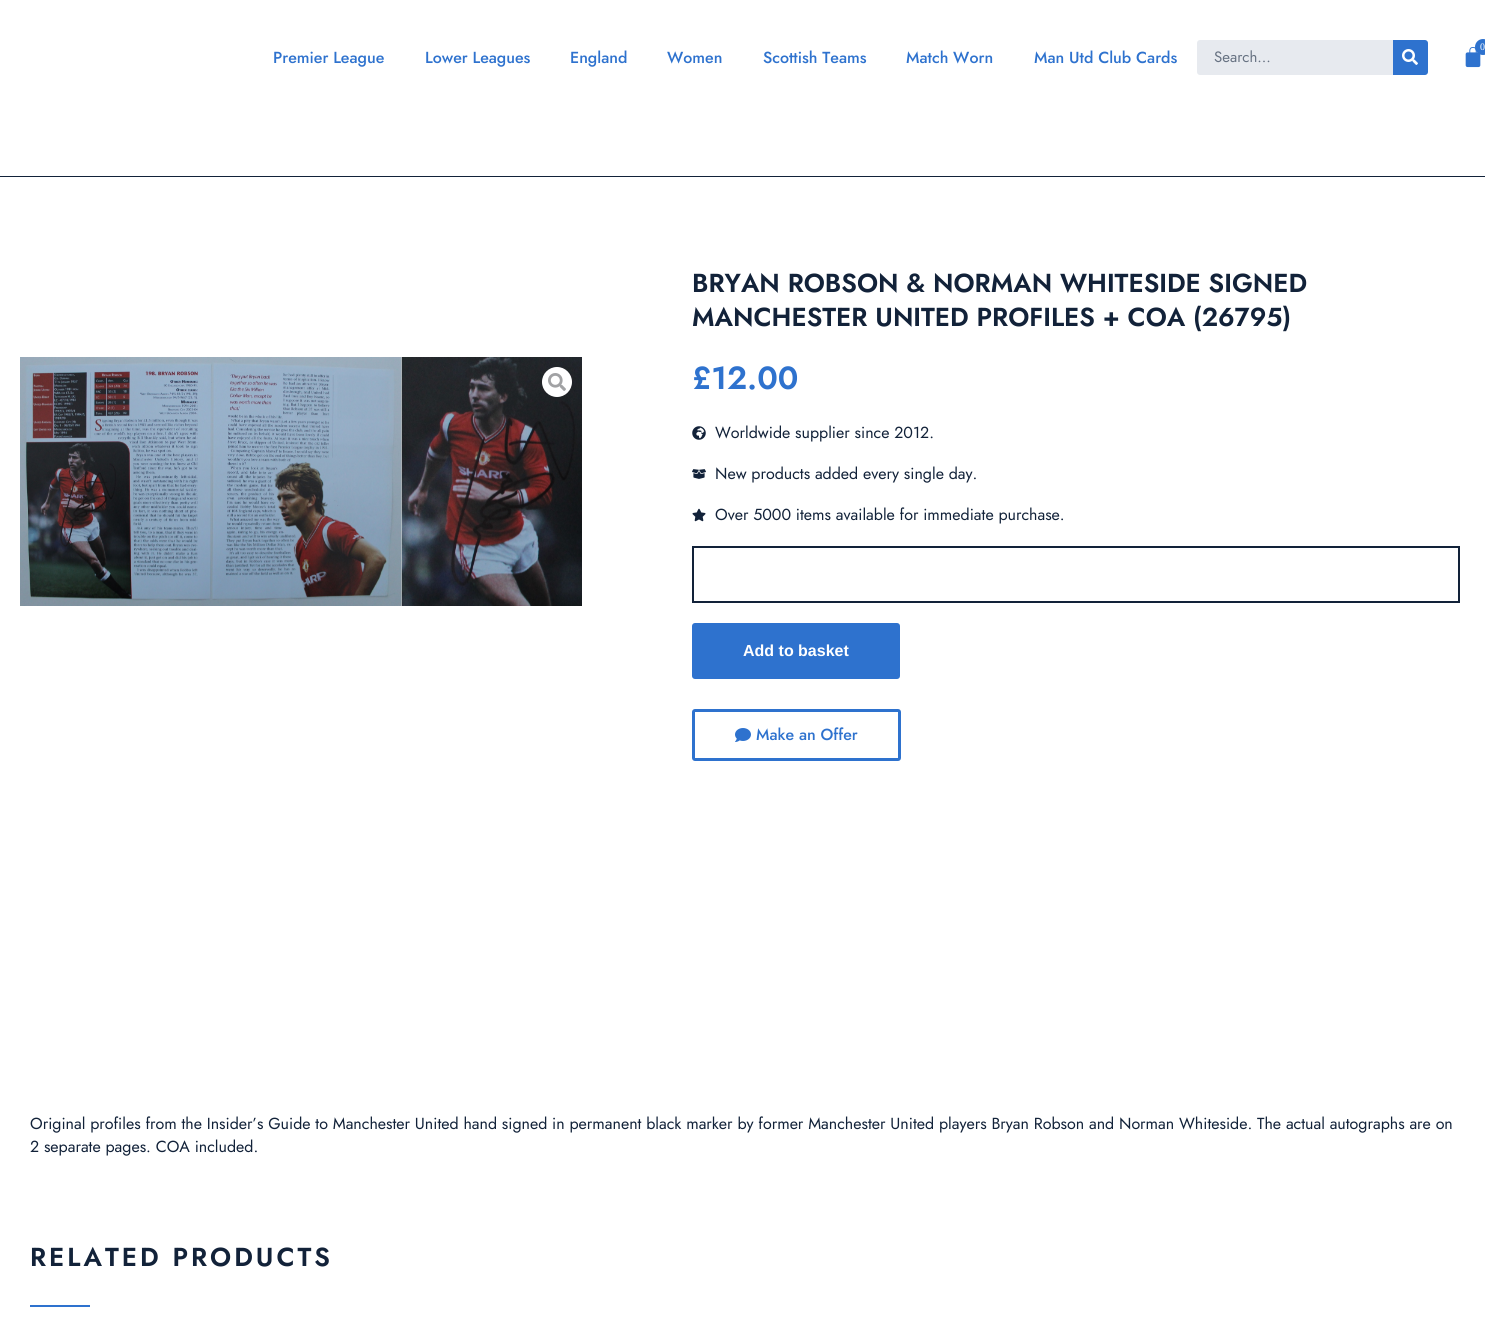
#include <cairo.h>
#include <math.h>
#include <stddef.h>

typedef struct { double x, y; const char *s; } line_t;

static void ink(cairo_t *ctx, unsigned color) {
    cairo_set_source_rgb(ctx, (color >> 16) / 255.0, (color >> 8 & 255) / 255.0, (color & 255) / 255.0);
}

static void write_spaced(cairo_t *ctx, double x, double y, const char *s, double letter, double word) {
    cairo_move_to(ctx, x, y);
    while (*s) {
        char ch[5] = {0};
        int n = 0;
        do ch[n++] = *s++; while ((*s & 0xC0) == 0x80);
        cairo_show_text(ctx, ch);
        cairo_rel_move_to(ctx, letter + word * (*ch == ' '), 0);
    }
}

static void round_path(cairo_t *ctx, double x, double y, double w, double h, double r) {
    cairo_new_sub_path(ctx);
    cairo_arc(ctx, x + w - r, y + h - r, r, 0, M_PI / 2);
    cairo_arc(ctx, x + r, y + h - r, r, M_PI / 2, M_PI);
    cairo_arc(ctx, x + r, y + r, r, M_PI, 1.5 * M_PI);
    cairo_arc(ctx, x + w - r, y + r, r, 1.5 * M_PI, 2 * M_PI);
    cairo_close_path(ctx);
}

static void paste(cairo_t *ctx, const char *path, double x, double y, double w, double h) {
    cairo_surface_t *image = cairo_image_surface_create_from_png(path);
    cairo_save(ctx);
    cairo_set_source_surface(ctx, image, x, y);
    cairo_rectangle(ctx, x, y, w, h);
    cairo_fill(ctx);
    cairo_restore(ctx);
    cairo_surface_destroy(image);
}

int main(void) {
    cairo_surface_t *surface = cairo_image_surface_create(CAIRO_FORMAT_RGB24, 1485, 1337);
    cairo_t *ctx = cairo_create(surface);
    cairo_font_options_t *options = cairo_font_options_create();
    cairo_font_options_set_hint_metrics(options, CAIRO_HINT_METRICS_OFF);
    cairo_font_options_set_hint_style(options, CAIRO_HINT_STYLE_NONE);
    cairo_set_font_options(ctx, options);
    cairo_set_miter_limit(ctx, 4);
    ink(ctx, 0xFFFFFF);
    cairo_paint(ctx);
    paste(ctx, "media/1.png", 1465, 47, 16, 21);
    ink(ctx, 0x2E72CE);
    cairo_arc(ctx, 1483, 47, 8, 0, 2 * M_PI);
    cairo_fill(ctx);
    cairo_select_font_face(ctx, "Liberation Serif", CAIRO_FONT_SLANT_NORMAL, CAIRO_FONT_WEIGHT_NORMAL);
    cairo_set_font_size(ctx, 10);
    ink(ctx, 0xFFFFFF);
    cairo_move_to(ctx, 1480, 50);
    cairo_show_text(ctx, "0");
    cairo_select_font_face(ctx, "Jost Medium", CAIRO_FONT_SLANT_NORMAL, CAIRO_FONT_WEIGHT_NORMAL);
    cairo_set_font_size(ctx, 16);
    ink(ctx, 0x2E72CE);
    {
        static const line_t items[] = {
            {273, 63, "Premier League"},
            {425, 63, "Lower Leagues"},
            {570, 63, "England"},
            {667, 63, "Women"},
            {763, 63, "Scottish Teams"},
            {906, 63, "Match Worn"},
            {1034, 63, "Man Utd Club Cards"},
        };
        for (size_t i = 0; i < sizeof items / sizeof *items; i++) {
            cairo_move_to(ctx, items[i].x, items[i].y);
            cairo_show_text(ctx, items[i].s);
        }
    }
    ink(ctx, 0xE7EAEF);
    round_path(ctx, 1197, 40, 231, 35, 3);
    cairo_fill(ctx);
    cairo_select_font_face(ctx, "Jost", CAIRO_FONT_SLANT_NORMAL, CAIRO_FONT_WEIGHT_NORMAL);
    cairo_set_font_size(ctx, 15);
    ink(ctx, 0x677282);
    cairo_move_to(ctx, 1214, 62);
    cairo_show_text(ctx, "Search...");
    ink(ctx, 0x2E72CE);
    cairo_new_path(ctx);
    cairo_move_to(ctx, 1393, 40);
    cairo_line_to(ctx, 1425, 40);
    cairo_curve_to(ctx, 1426.5, 40, 1428, 41.5, 1428, 43);
    cairo_line_to(ctx, 1428, 72);
    cairo_curve_to(ctx, 1428, 73.5, 1426.5, 75, 1425, 75);
    cairo_line_to(ctx, 1393, 75);
    cairo_close_path(ctx);
    cairo_fill(ctx);
    paste(ctx, "media/2.png", 1402, 49, 16, 16);
    ink(ctx, 0x122239);
    cairo_rectangle(ctx, 0, 176, 1485, 1);
    cairo_fill(ctx);
    paste(ctx, "media/3.png", 20, 357, 562, 249);
    ink(ctx, 0xFFFFFF);
    cairo_arc(ctx, 557, 382, 15, 0, 2 * M_PI);
    cairo_fill(ctx);
    paste(ctx, "media/4.png", 548, 373, 18, 18);
    cairo_select_font_face(ctx, "Jost SemiBold", CAIRO_FONT_SLANT_NORMAL, CAIRO_FONT_WEIGHT_NORMAL);
    cairo_set_font_size(ctx, 26);
    ink(ctx, 0x122239);
    cairo_move_to(ctx, 692, 292);
    cairo_show_text(ctx, "BRYAN ROBSON & NORMAN WHITESIDE SIGNED");
    cairo_move_to(ctx, 692, 326);
    cairo_show_text(ctx, "MANCHESTER UNITED PROFILES + COA (26795)");
    cairo_set_font_size(ctx, 32);
    ink(ctx, 0x2E72CE);
    cairo_move_to(ctx, 692, 389);
    cairo_show_text(ctx, "£12.00");
    paste(ctx, "media/5.png", 692, 426, 14, 14);
    cairo_select_font_face(ctx, "Jost", CAIRO_FONT_SLANT_NORMAL, CAIRO_FONT_WEIGHT_NORMAL);
    cairo_set_font_size(ctx, 16);
    ink(ctx, 0x122239);
    cairo_move_to(ctx, 715, 438);
    cairo_show_text(ctx, "Worldwide supplier since 2012.");
    paste(ctx, "media/6.png", 692, 469, 14, 10);
    cairo_move_to(ctx, 715, 479);
    cairo_show_text(ctx, "New products added every single day.");
    paste(ctx, "media/7.png", 692, 508, 14, 14);
    cairo_move_to(ctx, 715, 520);
    cairo_show_text(ctx, "Over 5000 items available for immediate purchase.");
    cairo_rectangle(ctx, 693, 547, 766, 55);
    cairo_stroke(ctx);
    ink(ctx, 0x2E72CE);
    round_path(ctx, 692, 623, 208, 56, 3);
    cairo_fill(ctx);
    cairo_select_font_face(ctx, "Liberation Sans", CAIRO_FONT_SLANT_NORMAL, CAIRO_FONT_WEIGHT_BOLD);
    ink(ctx, 0xFFFFFF);
    cairo_move_to(ctx, 743, 656);
    cairo_show_text(ctx, "Add to basket");
    round_path(ctx, 693.5, 710.5, 206, 49, 1.5);
    ink(ctx, 0x2E72CE);
    cairo_set_line_width(ctx, 3);
    cairo_stroke(ctx);
    paste(ctx, "media/8.png", 735, 728, 16, 14);
    cairo_select_font_face(ctx, "Jost Medium", CAIRO_FONT_SLANT_NORMAL, CAIRO_FONT_WEIGHT_NORMAL);
    cairo_move_to(ctx, 756, 740);
    cairo_show_text(ctx, "Make an Offer");
    cairo_select_font_face(ctx, "Jost", CAIRO_FONT_SLANT_NORMAL, CAIRO_FONT_WEIGHT_NORMAL);
    ink(ctx, 0x122239);
    cairo_move_to(ctx, 30, 1129);
    cairo_show_text(ctx, "Original profiles from the Insider’s Guide to Manchester United hand signed in permanent black marker by former Manchester United players Bryan Robson and Norman Whiteside. The actual autographs are on");
    cairo_move_to(ctx, 30, 1152);
    cairo_show_text(ctx, "2 separate pages. COA included.");
    cairo_select_font_face(ctx, "Jost SemiBold", CAIRO_FONT_SLANT_NORMAL, CAIRO_FONT_WEIGHT_NORMAL);
    cairo_set_font_size(ctx, 26);
    write_spaced(ctx, 30, 1266, "RELATED PRODUCTS", 3, 0);
    ink(ctx, 0x2E72CE);
    cairo_rectangle(ctx, 30, 1305, 60, 2);
    cairo_fill(ctx);
    cairo_surface_write_to_png(surface, "image.png");
    cairo_font_options_destroy(options);
    cairo_destroy(ctx);
    cairo_surface_destroy(surface);
    return 0;
}
